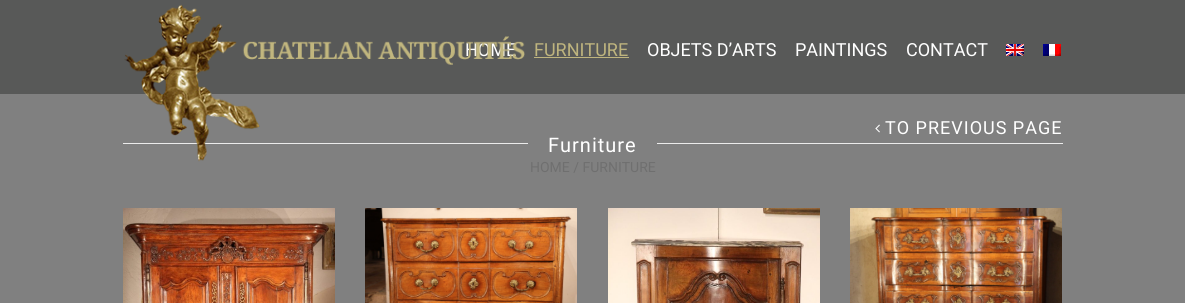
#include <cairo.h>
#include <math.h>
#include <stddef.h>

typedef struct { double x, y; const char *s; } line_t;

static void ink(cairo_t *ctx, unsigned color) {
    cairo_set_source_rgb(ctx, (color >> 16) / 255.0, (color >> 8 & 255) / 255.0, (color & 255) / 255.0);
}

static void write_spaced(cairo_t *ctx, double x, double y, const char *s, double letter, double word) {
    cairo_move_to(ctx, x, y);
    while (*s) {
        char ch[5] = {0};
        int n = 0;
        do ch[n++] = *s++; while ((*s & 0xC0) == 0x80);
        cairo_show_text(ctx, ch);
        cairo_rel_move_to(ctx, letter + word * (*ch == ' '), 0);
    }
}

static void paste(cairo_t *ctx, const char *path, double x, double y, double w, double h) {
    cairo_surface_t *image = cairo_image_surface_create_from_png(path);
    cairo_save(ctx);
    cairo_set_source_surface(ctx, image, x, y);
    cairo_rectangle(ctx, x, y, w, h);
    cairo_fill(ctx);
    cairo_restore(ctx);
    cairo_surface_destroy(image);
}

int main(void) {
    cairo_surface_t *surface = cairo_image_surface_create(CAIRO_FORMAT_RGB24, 1185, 303);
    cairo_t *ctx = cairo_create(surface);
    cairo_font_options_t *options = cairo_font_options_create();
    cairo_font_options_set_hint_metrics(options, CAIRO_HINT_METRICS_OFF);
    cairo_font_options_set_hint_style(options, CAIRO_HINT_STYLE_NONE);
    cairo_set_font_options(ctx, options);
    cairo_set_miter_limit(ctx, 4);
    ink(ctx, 0x808080);
    cairo_paint(ctx);
    ink(ctx, 0x585958);
    cairo_rectangle(ctx, 0, 0, 1185, 94);
    cairo_fill(ctx);
    cairo_select_font_face(ctx, "Roboto", CAIRO_FONT_SLANT_NORMAL, CAIRO_FONT_WEIGHT_NORMAL);
    cairo_set_font_size(ctx, 18);
    ink(ctx, 0xFFFFFF);
    cairo_move_to(ctx, 465, 56);
    cairo_show_text(ctx, "HOME");
    ink(ctx, 0xEBEBEB);
    cairo_rectangle(ctx, 123, 143, 940, 1);
    cairo_fill(ctx);
    paste(ctx, "media/1.png", 124, 4, 401, 158);
    ink(ctx, 0xBEB47E);
    cairo_move_to(ctx, 534, 56);
    cairo_show_text(ctx, "FURNITURE");
    cairo_rectangle(ctx, 534, 57, 95, 1);
    cairo_fill(ctx);
    ink(ctx, 0xFFFFFF);
    {
        static const line_t items[] = {
            {647, 56, "OBJETS D’ARTS"},
            {795, 56, "PAINTINGS"},
            {906, 56, "CONTACT"},
        };
        for (size_t i = 0; i < sizeof items / sizeof *items; i++) {
            cairo_move_to(ctx, items[i].x, items[i].y);
            cairo_show_text(ctx, items[i].s);
        }
    }
    paste(ctx, "media/2.png", 1006, 44, 18, 12);
    paste(ctx, "media/3.png", 1043, 44, 18, 12);
    paste(ctx, "media/4.png", 875, 124, 5, 9);
    write_spaced(ctx, 885, 134, "TO PREVIOUS PAGE", 1, 0);
    cairo_set_font_size(ctx, 14);
    ink(ctx, 0x6F6F6F);
    cairo_move_to(ctx, 530, 172);
    cairo_show_text(ctx, "HOME / FURNITURE");
    ink(ctx, 0x808080);
    cairo_rectangle(ctx, 528, 143, 129, 1);
    cairo_fill(ctx);
    cairo_set_font_size(ctx, 20);
    ink(ctx, 0xFFFFFF);
    write_spaced(ctx, 548, 152, "Furniture", 1, 0);
    paste(ctx, "media/5.png", 123, 208, 212, 95);
    paste(ctx, "media/6.png", 365, 208, 212, 95);
    paste(ctx, "media/7.png", 608, 208, 212, 95);
    paste(ctx, "media/8.png", 850, 208, 212, 95);
    cairo_surface_write_to_png(surface, "image.png");
    cairo_font_options_destroy(options);
    cairo_destroy(ctx);
    cairo_surface_destroy(surface);
    return 0;
}
